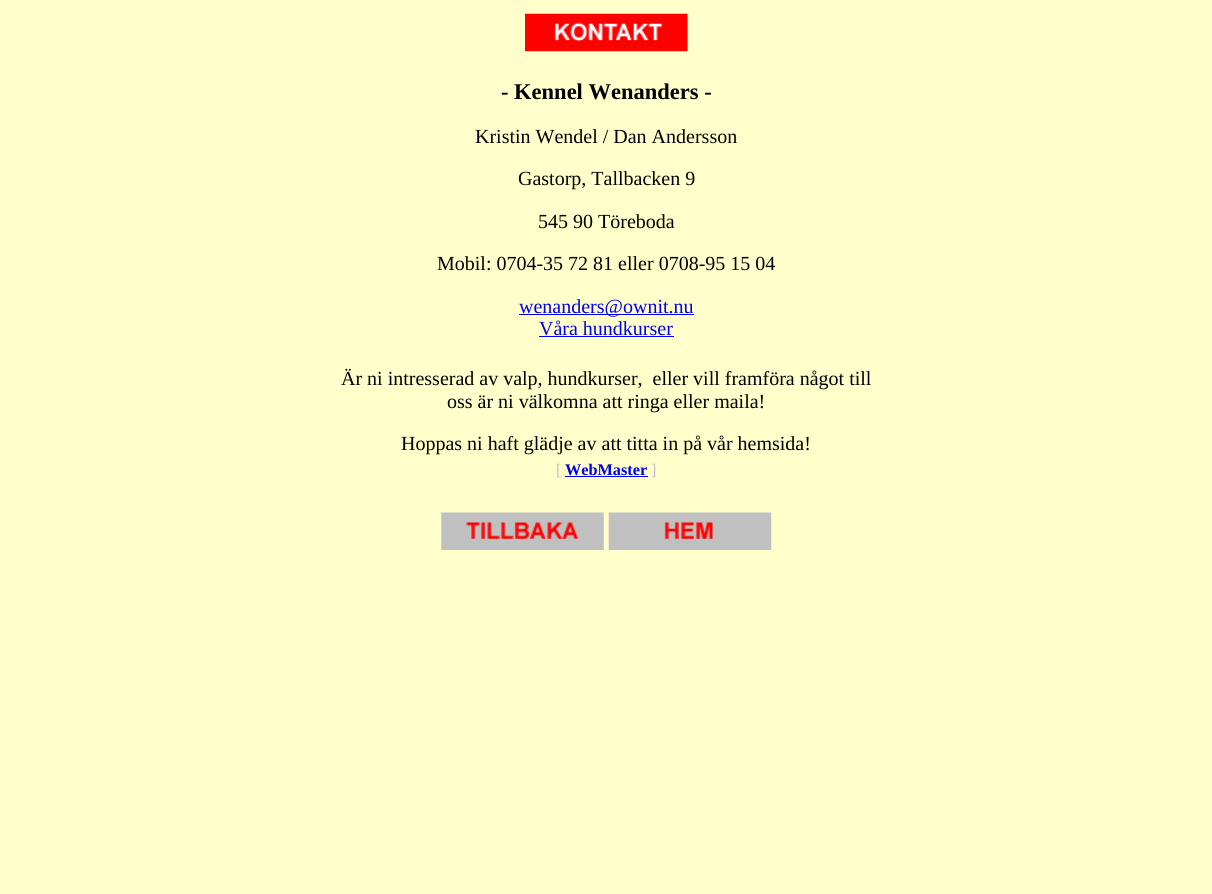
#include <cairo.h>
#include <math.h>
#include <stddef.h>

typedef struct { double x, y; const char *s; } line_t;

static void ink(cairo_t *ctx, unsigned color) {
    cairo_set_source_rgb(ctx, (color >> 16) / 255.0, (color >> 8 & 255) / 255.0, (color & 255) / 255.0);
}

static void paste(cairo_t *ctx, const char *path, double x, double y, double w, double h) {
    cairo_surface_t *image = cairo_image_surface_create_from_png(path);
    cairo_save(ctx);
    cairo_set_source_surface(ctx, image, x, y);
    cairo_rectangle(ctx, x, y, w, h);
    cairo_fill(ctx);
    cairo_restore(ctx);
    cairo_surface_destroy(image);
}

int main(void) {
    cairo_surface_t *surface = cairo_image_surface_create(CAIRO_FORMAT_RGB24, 1212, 894);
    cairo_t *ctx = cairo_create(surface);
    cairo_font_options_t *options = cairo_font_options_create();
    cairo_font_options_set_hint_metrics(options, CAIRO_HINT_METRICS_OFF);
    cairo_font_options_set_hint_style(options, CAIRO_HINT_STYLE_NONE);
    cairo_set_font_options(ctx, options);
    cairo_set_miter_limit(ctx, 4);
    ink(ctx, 0xFFFFCC);
    cairo_paint(ctx);
    paste(ctx, "media/1.png", 525, 13, 163, 39);
    cairo_select_font_face(ctx, "Liberation Serif", CAIRO_FONT_SLANT_NORMAL, CAIRO_FONT_WEIGHT_BOLD);
    cairo_set_font_size(ctx, 22.5);
    ink(ctx, 0x000000);
    cairo_move_to(ctx, 501, 99);
    cairo_show_text(ctx, "- Kennel Wenanders -");
    cairo_select_font_face(ctx, "Liberation Serif", CAIRO_FONT_SLANT_NORMAL, CAIRO_FONT_WEIGHT_NORMAL);
    cairo_set_font_size(ctx, 20);
    {
        static const line_t items[] = {
            {475, 143, "Kristin Wendel / Dan Andersson"},
            {518, 185, "Gastorp, Tallbacken 9"},
            {538, 228, "545 90 Töreboda"},
            {437, 270, "Mobil: 0704-35 72 81 eller 0708-95 15 04"},
        };
        for (size_t i = 0; i < sizeof items / sizeof *items; i++) {
            cairo_move_to(ctx, items[i].x, items[i].y);
            cairo_show_text(ctx, items[i].s);
        }
    }
    ink(ctx, 0x0000EE);
    cairo_rectangle(ctx, 519, 314, 175, 1);
    cairo_fill(ctx);
    cairo_move_to(ctx, 519, 313);
    cairo_show_text(ctx, "wenanders@ownit.nu");
    cairo_move_to(ctx, 539, 335);
    cairo_show_text(ctx, "Våra hundkurser");
    cairo_rectangle(ctx, 539, 336, 135, 1);
    cairo_fill(ctx);
    ink(ctx, 0x000000);
    {
        static const line_t items[] = {
            {341, 385, "Är ni intresserad av valp, hundkurser,  eller vill framföra något till"},
            {447, 408, "oss är ni välkomna att ringa eller maila!"},
            {401, 450, "Hoppas ni haft glädje av att titta in på vår hemsida!"},
        };
        for (size_t i = 0; i < sizeof items / sizeof *items; i++) {
            cairo_move_to(ctx, items[i].x, items[i].y);
            cairo_show_text(ctx, items[i].s);
        }
    }
    cairo_set_font_size(ctx, 16.25);
    ink(ctx, 0xC0C0C0);
    cairo_move_to(ctx, 556, 475);
    cairo_show_text(ctx, "[");
    cairo_select_font_face(ctx, "Liberation Serif", CAIRO_FONT_SLANT_NORMAL, CAIRO_FONT_WEIGHT_BOLD);
    ink(ctx, 0x0000EE);
    cairo_move_to(ctx, 565, 475);
    cairo_show_text(ctx, "WebMaster");
    cairo_rectangle(ctx, 565, 476, 83, 1);
    cairo_fill(ctx);
    cairo_select_font_face(ctx, "Liberation Serif", CAIRO_FONT_SLANT_NORMAL, CAIRO_FONT_WEIGHT_NORMAL);
    ink(ctx, 0xC0C0C0);
    cairo_move_to(ctx, 651, 475);
    cairo_show_text(ctx, "]");
    paste(ctx, "media/2.png", 441, 512, 163, 38);
    paste(ctx, "media/3.png", 608, 512, 164, 38);
    cairo_surface_write_to_png(surface, "image.png");
    cairo_font_options_destroy(options);
    cairo_destroy(ctx);
    cairo_surface_destroy(surface);
    return 0;
}
